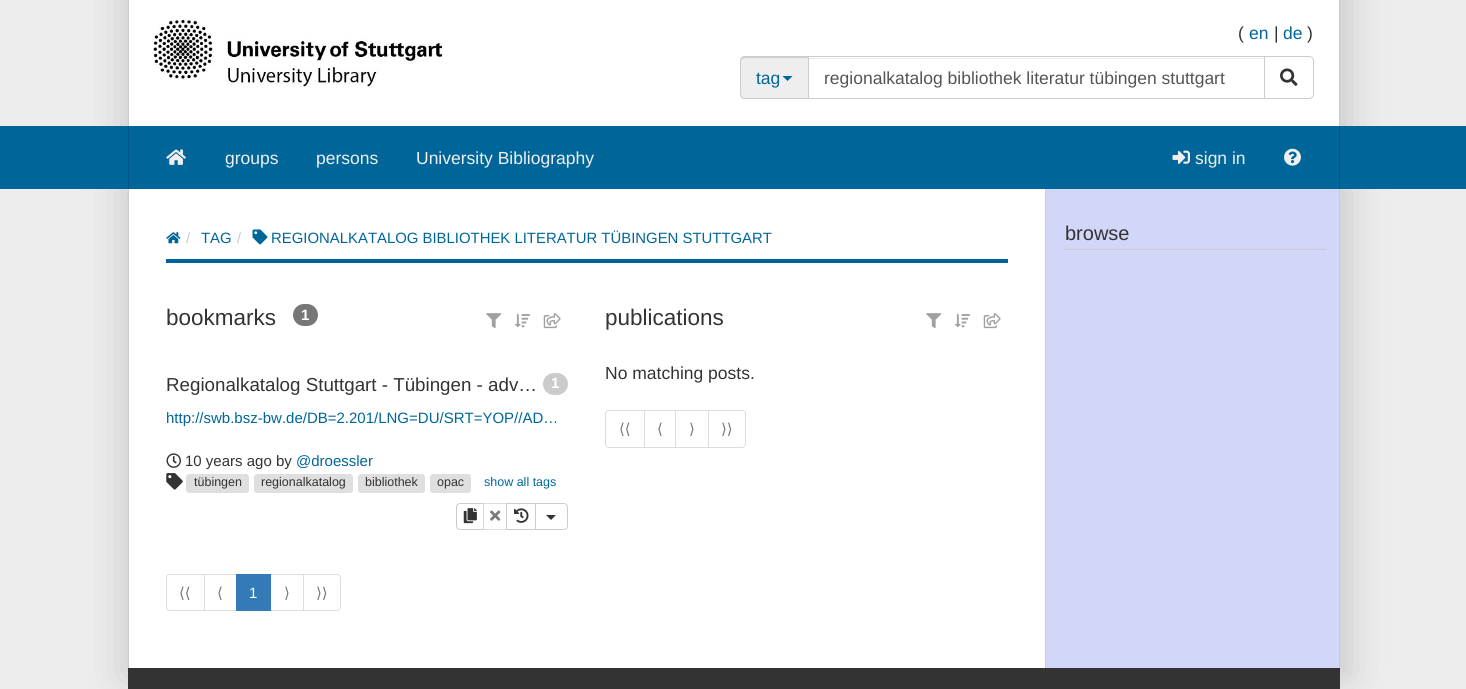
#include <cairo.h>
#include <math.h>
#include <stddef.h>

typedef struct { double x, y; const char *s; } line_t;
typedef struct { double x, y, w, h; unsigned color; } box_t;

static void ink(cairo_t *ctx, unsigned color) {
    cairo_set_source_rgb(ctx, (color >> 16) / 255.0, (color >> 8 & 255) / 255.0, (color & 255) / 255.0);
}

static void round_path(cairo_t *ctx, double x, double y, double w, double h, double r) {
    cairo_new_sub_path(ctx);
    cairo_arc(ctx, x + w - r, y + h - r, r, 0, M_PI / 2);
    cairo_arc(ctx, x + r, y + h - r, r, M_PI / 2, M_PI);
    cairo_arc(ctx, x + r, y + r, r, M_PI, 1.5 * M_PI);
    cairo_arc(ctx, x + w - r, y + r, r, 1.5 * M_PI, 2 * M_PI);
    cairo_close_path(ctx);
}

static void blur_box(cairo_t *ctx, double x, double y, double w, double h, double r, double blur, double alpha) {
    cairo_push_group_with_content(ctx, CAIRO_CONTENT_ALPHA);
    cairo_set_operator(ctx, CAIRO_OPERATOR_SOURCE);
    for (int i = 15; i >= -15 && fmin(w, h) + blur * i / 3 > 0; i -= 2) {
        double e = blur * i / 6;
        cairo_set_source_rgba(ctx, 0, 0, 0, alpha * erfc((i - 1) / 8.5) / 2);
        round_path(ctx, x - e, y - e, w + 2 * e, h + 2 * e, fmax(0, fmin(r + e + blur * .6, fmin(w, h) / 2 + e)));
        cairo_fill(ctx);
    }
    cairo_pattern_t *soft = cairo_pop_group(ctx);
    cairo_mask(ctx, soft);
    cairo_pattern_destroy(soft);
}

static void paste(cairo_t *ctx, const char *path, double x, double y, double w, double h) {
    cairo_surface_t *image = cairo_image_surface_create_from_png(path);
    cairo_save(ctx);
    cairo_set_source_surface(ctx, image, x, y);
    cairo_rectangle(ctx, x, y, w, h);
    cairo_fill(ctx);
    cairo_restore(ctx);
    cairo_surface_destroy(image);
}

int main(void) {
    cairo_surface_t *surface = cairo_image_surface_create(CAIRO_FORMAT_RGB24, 1466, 689);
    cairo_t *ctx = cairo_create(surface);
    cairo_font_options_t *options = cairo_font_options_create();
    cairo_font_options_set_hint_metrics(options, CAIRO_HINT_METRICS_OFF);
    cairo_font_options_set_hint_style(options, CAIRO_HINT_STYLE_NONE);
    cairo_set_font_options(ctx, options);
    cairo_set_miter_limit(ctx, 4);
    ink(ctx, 0xEDEDED);
    cairo_paint(ctx);
    ink(ctx, 0xCBCBCB);
    blur_box(ctx, 123, -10, 1227, 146, 0, 19, 1);
    {
        static const box_t items[] = {
            {129, 0, 1210, 126, 0xFFFFFF},
            {1339, 0, 1, 126, 0xCBCBCB},
            {128, 0, 1, 126, 0xCBCBCB},
        };
        for (size_t i = 0; i < sizeof items / sizeof *items; i++) {
            ink(ctx, items[i].color);
            cairo_rectangle(ctx, items[i].x, items[i].y, items[i].w, items[i].h);
            cairo_fill(ctx);
        }
    }
    paste(ctx, "media/1.png", 153, 20, 290, 67);
    cairo_select_font_face(ctx, "Liberation Sans", CAIRO_FONT_SLANT_NORMAL, CAIRO_FONT_WEIGHT_NORMAL);
    cairo_set_font_size(ctx, 17.5);
    ink(ctx, 0x333333);
    cairo_move_to(ctx, 1238, 39);
    cairo_show_text(ctx, "(");
    ink(ctx, 0x006699);
    cairo_move_to(ctx, 1249, 39);
    cairo_show_text(ctx, "en");
    ink(ctx, 0x333333);
    cairo_move_to(ctx, 1274, 39);
    cairo_show_text(ctx, "|");
    ink(ctx, 0x006699);
    cairo_move_to(ctx, 1283, 39);
    cairo_show_text(ctx, "de");
    ink(ctx, 0x333333);
    cairo_move_to(ctx, 1307, 39);
    cairo_show_text(ctx, ")");
    ink(ctx, 0xEEEEEE);
    cairo_new_path(ctx);
    cairo_move_to(ctx, 745, 56);
    cairo_line_to(ctx, 808, 56);
    cairo_line_to(ctx, 808, 99);
    cairo_line_to(ctx, 745, 99);
    cairo_curve_to(ctx, 742, 99, 740, 97, 740, 94);
    cairo_line_to(ctx, 740, 61);
    cairo_curve_to(ctx, 740, 58, 742, 56, 745, 56);
    cairo_close_path(ctx);
    cairo_fill(ctx);
    ink(ctx, 0xCCCCCC);
    cairo_set_fill_rule(ctx, CAIRO_FILL_RULE_EVEN_ODD);
    cairo_new_path(ctx);
    cairo_move_to(ctx, 745, 56);
    cairo_line_to(ctx, 808, 56);
    cairo_line_to(ctx, 808, 99);
    cairo_line_to(ctx, 745, 99);
    cairo_curve_to(ctx, 742, 99, 740, 97, 740, 94);
    cairo_line_to(ctx, 740, 61);
    cairo_curve_to(ctx, 740, 58, 742, 56, 745, 56);
    cairo_close_path(ctx);
    cairo_move_to(ctx, 745, 58);
    cairo_line_to(ctx, 808, 58);
    cairo_line_to(ctx, 808, 98);
    cairo_line_to(ctx, 745, 98);
    cairo_curve_to(ctx, 743, 98, 741, 96, 741, 94);
    cairo_line_to(ctx, 741, 61);
    cairo_curve_to(ctx, 741, 59, 743, 58, 745, 58);
    cairo_close_path(ctx);
    cairo_fill(ctx);
    ink(ctx, 0x006699);
    cairo_move_to(ctx, 756, 84);
    cairo_show_text(ctx, "tag");
    cairo_set_fill_rule(ctx, CAIRO_FILL_RULE_WINDING);
    cairo_new_path(ctx);
    cairo_move_to(ctx, 782.5, 76);
    cairo_line_to(ctx, 792.5, 76);
    cairo_line_to(ctx, 787.5, 81);
    cairo_close_path(ctx);
    cairo_fill(ctx);
    ink(ctx, 0xECECEC);
    cairo_rectangle(ctx, 809, 58, 455, 1);
    cairo_fill(ctx);
    cairo_rectangle(ctx, 808.5, 56.5, 456, 42);
    ink(ctx, 0xCCCCCC);
    cairo_set_line_width(ctx, 1);
    cairo_stroke(ctx);
    ink(ctx, 0x555555);
    cairo_move_to(ctx, 824, 84);
    cairo_show_text(ctx, "regionalkatalog bibliothek literatur tübingen stuttgart");
    ink(ctx, 0xFFFFFF);
    cairo_new_path(ctx);
    cairo_move_to(ctx, 1264.5, 56.5);
    cairo_line_to(ctx, 1309, 56.5);
    cairo_curve_to(ctx, 1311.5, 56.5, 1313.5, 58.5, 1313.5, 61);
    cairo_line_to(ctx, 1313.5, 94);
    cairo_curve_to(ctx, 1313.5, 96.5, 1311.5, 98.5, 1309, 98.5);
    cairo_line_to(ctx, 1264.5, 98.5);
    cairo_close_path(ctx);
    cairo_fill_preserve(ctx);
    ink(ctx, 0xCCCCCC);
    cairo_stroke(ctx);
    paste(ctx, "media/2.png", 1280, 68, 18, 18);
    ink(ctx, 0xCBCBCB);
    blur_box(ctx, 123, 184, 1227, 494, 0, 19, 1);
    {
        static const box_t items[] = {
            {0, 126, 1466, 63, 0x006699},
            {1339, 126, 1, 63, 0x005588},
            {128, 126, 1, 63, 0x005588},
        };
        for (size_t i = 0; i < sizeof items / sizeof *items; i++) {
            ink(ctx, items[i].color);
            cairo_rectangle(ctx, items[i].x, items[i].y, items[i].w, items[i].h);
            cairo_fill(ctx);
        }
    }
    paste(ctx, "media/3.png", 166, 149, 20, 16);
    ink(ctx, 0xEFEFEF);
    {
        static const line_t items[] = {
            {225, 164, "groups"},
            {316, 164, "persons"},
            {416, 164, "University Bibliography"},
        };
        for (size_t i = 0; i < sizeof items / sizeof *items; i++) {
            cairo_move_to(ctx, items[i].x, items[i].y);
            cairo_show_text(ctx, items[i].s);
        }
    }
    paste(ctx, "media/4.png", 1172, 150, 18, 14);
    cairo_move_to(ctx, 1195, 164);
    cairo_show_text(ctx, "sign in");
    paste(ctx, "media/5.png", 1284, 148, 17, 18);
    {
        static const box_t items[] = {
            {129, 189, 916, 479, 0xFFFFFF},
            {1339, 189, 1, 479, 0xCBCBCB},
            {128, 189, 1, 479, 0xCBCBCB},
            {166, 259, 842, 4, 0x006699},
        };
        for (size_t i = 0; i < sizeof items / sizeof *items; i++) {
            ink(ctx, items[i].color);
            cairo_rectangle(ctx, items[i].x, items[i].y, items[i].w, items[i].h);
            cairo_fill(ctx);
        }
    }
    paste(ctx, "media/6.png", 166, 232, 15, 12);
    cairo_set_font_size(ctx, 14.9);
    ink(ctx, 0xCCCCCC);
    cairo_move_to(ctx, 186, 243);
    cairo_show_text(ctx, "/");
    ink(ctx, 0x006699);
    cairo_move_to(ctx, 201, 243);
    cairo_show_text(ctx, "TAG");
    ink(ctx, 0xCCCCCC);
    cairo_move_to(ctx, 237, 243);
    cairo_show_text(ctx, "/");
    paste(ctx, "media/7.png", 252, 229, 16, 16);
    ink(ctx, 0x006699);
    cairo_move_to(ctx, 271, 243);
    cairo_show_text(ctx, "REGIONALKATALOG BIBLIOTHEK LITERATUR TÜBINGEN STUTTGART");
    cairo_set_font_size(ctx, 22.5);
    ink(ctx, 0x333333);
    cairo_move_to(ctx, 166, 325);
    cairo_show_text(ctx, "bookmarks");
    ink(ctx, 0x777777);
    round_path(ctx, 293, 304, 25, 22, 11);
    cairo_fill(ctx);
    cairo_select_font_face(ctx, "Liberation Sans", CAIRO_FONT_SLANT_NORMAL, CAIRO_FONT_WEIGHT_BOLD);
    cairo_set_font_size(ctx, 15);
    ink(ctx, 0xFFFFFF);
    cairo_move_to(ctx, 301, 320);
    cairo_show_text(ctx, "1");
    paste(ctx, "media/8.png", 486, 313, 16, 16);
    paste(ctx, "media/9.png", 515, 314, 15, 14);
    paste(ctx, "media/10.png", 543, 313, 18, 16);
    cairo_select_font_face(ctx, "Liberation Sans", CAIRO_FONT_SLANT_NORMAL, CAIRO_FONT_WEIGHT_NORMAL);
    cairo_set_font_size(ctx, 18.75);
    ink(ctx, 0x333333);
    cairo_move_to(ctx, 166, 391);
    cairo_show_text(ctx, "Regionalkatalog Stuttgart - Tübingen - adv…");
    ink(ctx, 0xCBCBCB);
    round_path(ctx, 543, 373, 25, 22, 11);
    cairo_fill(ctx);
    cairo_select_font_face(ctx, "Liberation Sans", CAIRO_FONT_SLANT_NORMAL, CAIRO_FONT_WEIGHT_BOLD);
    cairo_set_font_size(ctx, 15);
    ink(ctx, 0xFFFFFF);
    cairo_move_to(ctx, 551, 388);
    cairo_show_text(ctx, "1");
    cairo_select_font_face(ctx, "Liberation Sans", CAIRO_FONT_SLANT_NORMAL, CAIRO_FONT_WEIGHT_NORMAL);
    ink(ctx, 0x006699);
    cairo_move_to(ctx, 166, 423);
    cairo_show_text(ctx, "http://swb.bsz-bw.de/DB=2.201/LNG=DU/SRT=YOP//AD…");
    paste(ctx, "media/11.png", 166, 453, 15, 15);
    ink(ctx, 0x333333);
    cairo_move_to(ctx, 185, 466);
    cairo_show_text(ctx, "10 years ago by");
    ink(ctx, 0x006699);
    cairo_move_to(ctx, 296, 466);
    cairo_show_text(ctx, "@droessler");
    paste(ctx, "media/12.png", 166, 473, 17, 17);
    ink(ctx, 0xDFDFDF);
    round_path(ctx, 186, 474, 63, 19, 3);
    cairo_fill(ctx);
    cairo_set_font_size(ctx, 12.5);
    ink(ctx, 0x333333);
    cairo_move_to(ctx, 194, 486);
    cairo_show_text(ctx, "tübingen");
    ink(ctx, 0xDFDFDF);
    round_path(ctx, 254, 474, 99, 19, 3);
    cairo_fill(ctx);
    ink(ctx, 0x333333);
    cairo_move_to(ctx, 261, 486);
    cairo_show_text(ctx, "regionalkatalog");
    ink(ctx, 0xDFDFDF);
    round_path(ctx, 358, 474, 67, 19, 3);
    cairo_fill(ctx);
    ink(ctx, 0x333333);
    cairo_move_to(ctx, 365, 486);
    cairo_show_text(ctx, "bibliothek");
    ink(ctx, 0xDFDFDF);
    round_path(ctx, 430, 474, 41, 19, 3);
    cairo_fill(ctx);
    ink(ctx, 0x333333);
    cairo_move_to(ctx, 437, 486);
    cairo_show_text(ctx, "opac");
    ink(ctx, 0x006699);
    cairo_move_to(ctx, 484, 486);
    cairo_show_text(ctx, "show all tags");
    cairo_new_path(ctx);
    cairo_move_to(ctx, 460, 503.5);
    cairo_line_to(ctx, 483.5, 503.5);
    cairo_line_to(ctx, 483.5, 529.5);
    cairo_line_to(ctx, 460, 529.5);
    cairo_curve_to(ctx, 458, 529.5, 456.5, 528, 456.5, 526);
    cairo_line_to(ctx, 456.5, 507);
    cairo_curve_to(ctx, 456.5, 505, 458, 503.5, 460, 503.5);
    cairo_close_path(ctx);
    ink(ctx, 0xCCCCCC);
    cairo_stroke(ctx);
    paste(ctx, "media/13.png", 463, 508, 14, 16);
    cairo_set_source_rgba(ctx, 1, 1, 1, 0.65);
    cairo_rectangle(ctx, 483, 503, 1, 27);
    cairo_fill(ctx);
    cairo_rectangle(ctx, 483.5, 503.5, 24, 26);
    cairo_set_source_rgba(ctx, 0.8, 0.8, 0.8, 0.65);
    cairo_stroke(ctx);
    paste(ctx, "media/14.png", 490, 510, 11, 11);
    ink(ctx, 0xFFFFFF);
    cairo_rectangle(ctx, 507, 504, 1, 25);
    cairo_fill(ctx);
    cairo_rectangle(ctx, 506.5, 503.5, 29, 26);
    ink(ctx, 0xCCCCCC);
    cairo_stroke(ctx);
    paste(ctx, "media/15.png", 514, 508, 15, 15);
    ink(ctx, 0xFFFFFF);
    cairo_new_path(ctx);
    cairo_move_to(ctx, 535.5, 503.5);
    cairo_line_to(ctx, 564, 503.5);
    cairo_curve_to(ctx, 566, 503.5, 567.5, 505, 567.5, 507);
    cairo_line_to(ctx, 567.5, 526);
    cairo_curve_to(ctx, 567.5, 528, 566, 529.5, 564, 529.5);
    cairo_line_to(ctx, 535.5, 529.5);
    cairo_close_path(ctx);
    cairo_fill_preserve(ctx);
    ink(ctx, 0xCCCCCC);
    cairo_stroke(ctx);
    ink(ctx, 0x333333);
    cairo_new_path(ctx);
    cairo_move_to(ctx, 546, 515);
    cairo_line_to(ctx, 556, 515);
    cairo_line_to(ctx, 551, 520);
    cairo_close_path(ctx);
    cairo_fill(ctx);
    cairo_new_path(ctx);
    cairo_move_to(ctx, 170, 574.5);
    cairo_line_to(ctx, 204.5, 574.5);
    cairo_line_to(ctx, 204.5, 610.5);
    cairo_line_to(ctx, 170, 610.5);
    cairo_curve_to(ctx, 168, 610.5, 166.5, 609, 166.5, 607);
    cairo_line_to(ctx, 166.5, 578);
    cairo_curve_to(ctx, 166.5, 576, 168, 574.5, 170, 574.5);
    cairo_close_path(ctx);
    ink(ctx, 0xDDDDDD);
    cairo_stroke(ctx);
    cairo_select_font_face(ctx, "DejaVu Sans", CAIRO_FONT_SLANT_NORMAL, CAIRO_FONT_WEIGHT_NORMAL);
    cairo_set_font_size(ctx, 15);
    ink(ctx, 0x777777);
    cairo_move_to(ctx, 179, 598);
    cairo_show_text(ctx, "⟨⟨");
    cairo_rectangle(ctx, 204.5, 574.5, 33, 36);
    ink(ctx, 0xDDDDDD);
    cairo_stroke(ctx);
    ink(ctx, 0x777777);
    cairo_move_to(ctx, 217, 598);
    cairo_show_text(ctx, "⟨");
    cairo_rectangle(ctx, 270.5, 574.5, 33, 36);
    ink(ctx, 0xDDDDDD);
    cairo_stroke(ctx);
    ink(ctx, 0x337AB7);
    cairo_rectangle(ctx, 236, 574, 35, 37);
    cairo_fill(ctx);
    cairo_select_font_face(ctx, "Liberation Sans", CAIRO_FONT_SLANT_NORMAL, CAIRO_FONT_WEIGHT_NORMAL);
    ink(ctx, 0xFFFFFF);
    cairo_move_to(ctx, 249, 598);
    cairo_show_text(ctx, "1");
    cairo_select_font_face(ctx, "DejaVu Sans", CAIRO_FONT_SLANT_NORMAL, CAIRO_FONT_WEIGHT_NORMAL);
    ink(ctx, 0x777777);
    cairo_move_to(ctx, 284, 598);
    cairo_show_text(ctx, "⟩");
    ink(ctx, 0xFFFFFF);
    cairo_new_path(ctx);
    cairo_move_to(ctx, 303.5, 574.5);
    cairo_line_to(ctx, 337, 574.5);
    cairo_curve_to(ctx, 339, 574.5, 340.5, 576, 340.5, 578);
    cairo_line_to(ctx, 340.5, 607);
    cairo_curve_to(ctx, 340.5, 609, 339, 610.5, 337, 610.5);
    cairo_line_to(ctx, 303.5, 610.5);
    cairo_close_path(ctx);
    cairo_fill_preserve(ctx);
    ink(ctx, 0xDDDDDD);
    cairo_stroke(ctx);
    ink(ctx, 0x777777);
    cairo_move_to(ctx, 316, 598);
    cairo_show_text(ctx, "⟩⟩");
    cairo_select_font_face(ctx, "Liberation Sans", CAIRO_FONT_SLANT_NORMAL, CAIRO_FONT_WEIGHT_NORMAL);
    cairo_set_font_size(ctx, 22.5);
    ink(ctx, 0x333333);
    cairo_move_to(ctx, 605, 325);
    cairo_show_text(ctx, "publications");
    paste(ctx, "media/8.png", 926, 313, 16, 16);
    paste(ctx, "media/9.png", 955, 314, 15, 14);
    paste(ctx, "media/10.png", 983, 313, 18, 16);
    cairo_set_font_size(ctx, 17.5);
    cairo_move_to(ctx, 605, 379);
    cairo_show_text(ctx, "No matching posts.");
    cairo_new_path(ctx);
    cairo_move_to(ctx, 609, 410.5);
    cairo_line_to(ctx, 644.5, 410.5);
    cairo_line_to(ctx, 644.5, 447.5);
    cairo_line_to(ctx, 609, 447.5);
    cairo_curve_to(ctx, 607, 447.5, 605.5, 446, 605.5, 444);
    cairo_line_to(ctx, 605.5, 414);
    cairo_curve_to(ctx, 605.5, 412, 607, 410.5, 609, 410.5);
    cairo_close_path(ctx);
    ink(ctx, 0xDDDDDD);
    cairo_stroke(ctx);
    cairo_select_font_face(ctx, "DejaVu Sans", CAIRO_FONT_SLANT_NORMAL, CAIRO_FONT_WEIGHT_NORMAL);
    cairo_set_font_size(ctx, 15);
    ink(ctx, 0x777777);
    cairo_move_to(ctx, 619, 434);
    cairo_show_text(ctx, "⟨⟨");
    cairo_rectangle(ctx, 644.5, 410.5, 31, 37);
    ink(ctx, 0xDDDDDD);
    cairo_stroke(ctx);
    ink(ctx, 0x777777);
    cairo_move_to(ctx, 657, 434);
    cairo_show_text(ctx, "⟨");
    cairo_rectangle(ctx, 675.5, 410.5, 33, 37);
    ink(ctx, 0xDDDDDD);
    cairo_stroke(ctx);
    ink(ctx, 0x777777);
    cairo_move_to(ctx, 689, 434);
    cairo_show_text(ctx, "⟩");
    ink(ctx, 0xFFFFFF);
    cairo_new_path(ctx);
    cairo_move_to(ctx, 708.5, 410.5);
    cairo_line_to(ctx, 742, 410.5);
    cairo_curve_to(ctx, 744, 410.5, 745.5, 412, 745.5, 414);
    cairo_line_to(ctx, 745.5, 444);
    cairo_curve_to(ctx, 745.5, 446, 744, 447.5, 742, 447.5);
    cairo_line_to(ctx, 708.5, 447.5);
    cairo_close_path(ctx);
    cairo_fill_preserve(ctx);
    ink(ctx, 0xDDDDDD);
    cairo_stroke(ctx);
    ink(ctx, 0x777777);
    cairo_move_to(ctx, 721, 434);
    cairo_show_text(ctx, "⟩⟩");
    {
        static const box_t items[] = {
            {1046, 189, 293, 479, 0xD2D7F9},
            {1045, 189, 1, 479, 0xCBCBCB},
            {1065, 249, 261, 1, 0xCBCBCB},
        };
        for (size_t i = 0; i < sizeof items / sizeof *items; i++) {
            ink(ctx, items[i].color);
            cairo_rectangle(ctx, items[i].x, items[i].y, items[i].w, items[i].h);
            cairo_fill(ctx);
        }
    }
    cairo_select_font_face(ctx, "Liberation Sans", CAIRO_FONT_SLANT_NORMAL, CAIRO_FONT_WEIGHT_NORMAL);
    cairo_set_font_size(ctx, 20);
    ink(ctx, 0x333333);
    cairo_move_to(ctx, 1065, 240);
    cairo_show_text(ctx, "browse");
    cairo_rectangle(ctx, 128, 668, 1212, 21);
    cairo_fill(ctx);
    cairo_surface_write_to_png(surface, "image.png");
    cairo_font_options_destroy(options);
    cairo_destroy(ctx);
    cairo_surface_destroy(surface);
    return 0;
}
